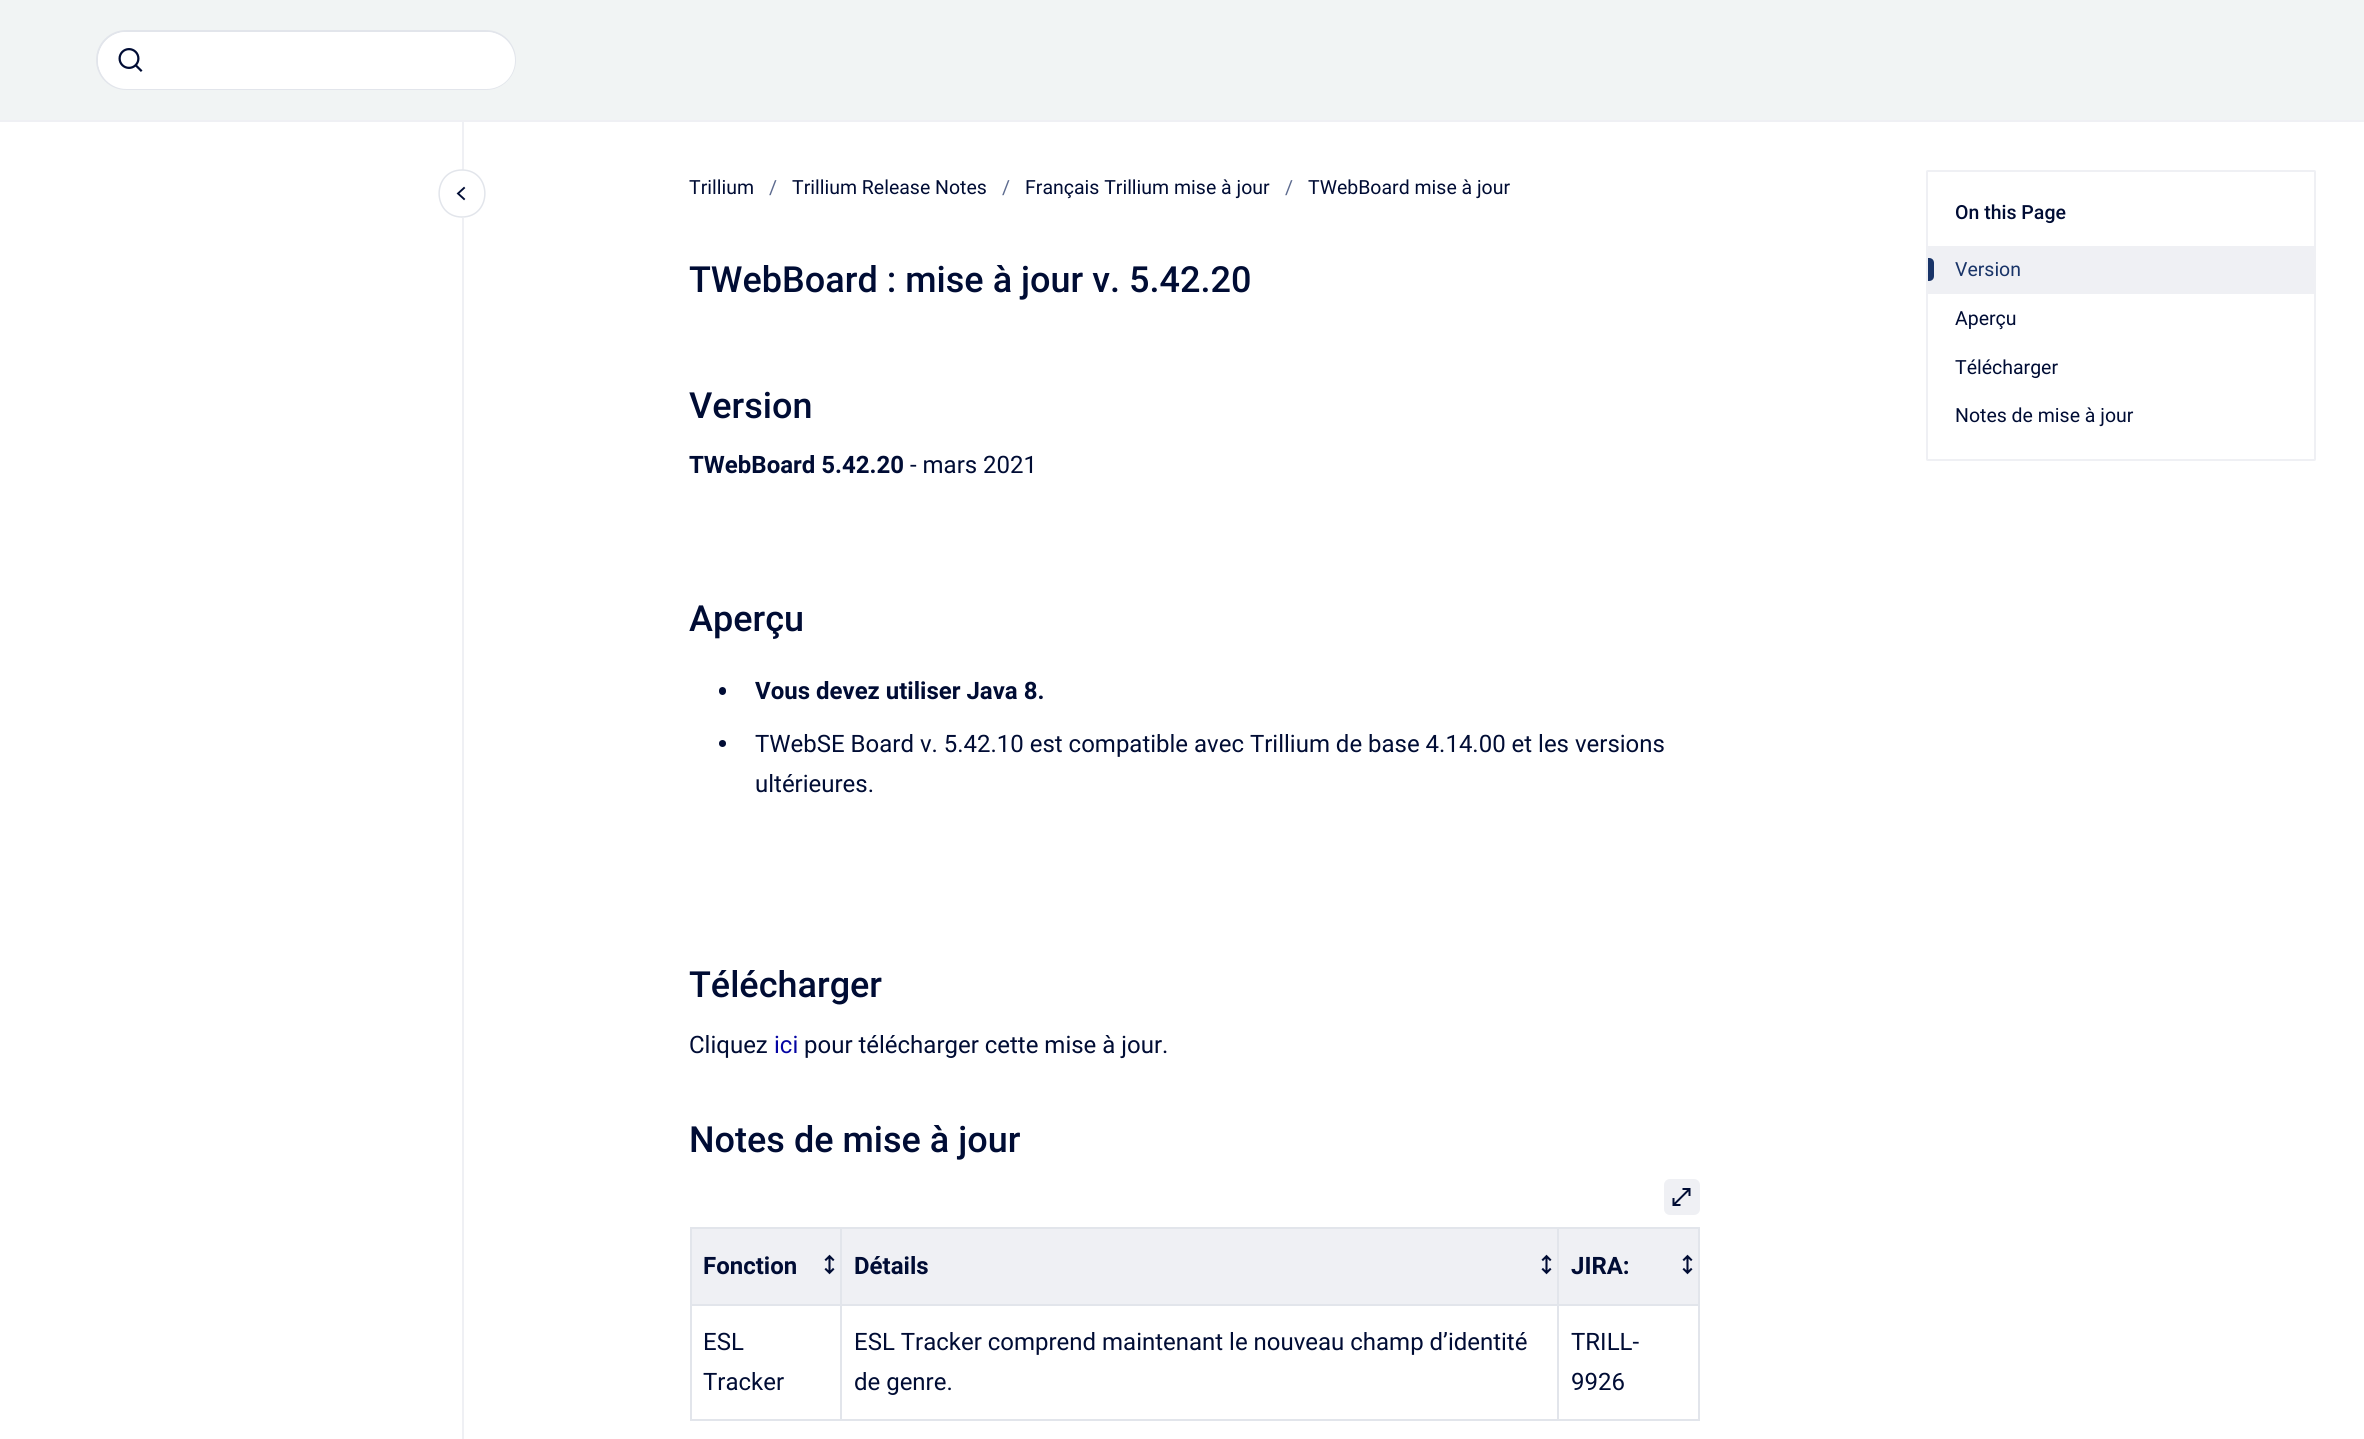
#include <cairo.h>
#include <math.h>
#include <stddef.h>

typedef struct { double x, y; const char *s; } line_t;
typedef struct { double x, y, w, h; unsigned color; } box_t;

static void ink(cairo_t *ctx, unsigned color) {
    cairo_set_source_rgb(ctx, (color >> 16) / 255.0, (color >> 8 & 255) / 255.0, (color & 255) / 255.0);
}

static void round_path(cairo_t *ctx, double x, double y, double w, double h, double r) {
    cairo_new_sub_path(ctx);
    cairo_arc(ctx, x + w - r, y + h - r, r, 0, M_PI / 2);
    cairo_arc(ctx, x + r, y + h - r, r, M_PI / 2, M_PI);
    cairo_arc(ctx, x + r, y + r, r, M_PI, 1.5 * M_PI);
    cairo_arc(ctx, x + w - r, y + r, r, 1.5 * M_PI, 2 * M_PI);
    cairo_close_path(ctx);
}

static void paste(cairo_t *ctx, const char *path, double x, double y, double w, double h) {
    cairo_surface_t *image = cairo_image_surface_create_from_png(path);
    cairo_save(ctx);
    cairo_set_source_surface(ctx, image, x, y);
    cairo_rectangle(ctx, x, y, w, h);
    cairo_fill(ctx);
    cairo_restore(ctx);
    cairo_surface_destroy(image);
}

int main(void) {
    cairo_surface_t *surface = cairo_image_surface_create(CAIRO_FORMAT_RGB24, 2364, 1439);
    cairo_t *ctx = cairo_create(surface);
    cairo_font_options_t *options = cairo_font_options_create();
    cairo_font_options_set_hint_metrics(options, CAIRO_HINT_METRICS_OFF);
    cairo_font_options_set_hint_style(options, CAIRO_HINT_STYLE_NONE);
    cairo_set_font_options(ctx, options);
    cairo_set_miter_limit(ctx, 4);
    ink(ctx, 0xFFFFFF);
    cairo_paint(ctx);
    ink(ctx, 0xF1F4F4);
    cairo_rectangle(ctx, 0, 0, 2364, 120);
    cairo_fill(ctx);
    ink(ctx, 0xEFF0F4);
    cairo_rectangle(ctx, 0, 120, 2364, 2);
    cairo_fill(ctx);
    ink(ctx, 0xFFFFFF);
    round_path(ctx, 97, 31, 418, 58, 29);
    cairo_fill_preserve(ctx);
    ink(ctx, 0xE2E5EB);
    cairo_stroke(ctx);
    ink(ctx, 0xFFFFFF);
    round_path(ctx, 98, 32, 417, 57, 28.5);
    cairo_fill(ctx);
    paste(ctx, "media/1.png", 118, 48, 25, 24);
    ink(ctx, 0xEFF0F4);
    cairo_rectangle(ctx, 462, 122, 2, 1317);
    cairo_fill(ctx);
    ink(ctx, 0xFFFFFF);
    cairo_new_path(ctx);
    cairo_move_to(ctx, 462, 218);
    cairo_curve_to(ctx, 430, 218, 430, 170, 462, 170);
    cairo_curve_to(ctx, 494, 170, 494, 218, 462, 218);
    cairo_close_path(ctx);
    cairo_fill(ctx);
    cairo_new_path(ctx);
    cairo_move_to(ctx, 462, 217);
    cairo_curve_to(ctx, 431.5, 217, 431.5, 170, 462, 170);
    cairo_curve_to(ctx, 492.5, 170, 492.5, 217, 462, 217);
    cairo_close_path(ctx);
    ink(ctx, 0xE2E5EB);
    cairo_set_line_width(ctx, 1.5);
    cairo_stroke(ctx);
    cairo_new_path(ctx);
    cairo_move_to(ctx, 464, 199);
    cairo_line_to(ctx, 458, 193.5);
    cairo_line_to(ctx, 464, 188);
    ink(ctx, 0x000C34);
    cairo_set_line_width(ctx, 1.9);
    cairo_set_line_cap(ctx, CAIRO_LINE_CAP_SQUARE);
    cairo_stroke(ctx);
    cairo_select_font_face(ctx, "Roboto", CAIRO_FONT_SLANT_NORMAL, CAIRO_FONT_WEIGHT_NORMAL);
    cairo_set_font_size(ctx, 19.5);
    cairo_move_to(ctx, 689, 194);
    cairo_show_text(ctx, "Trillium");
    ink(ctx, 0x5D6B8F);
    cairo_move_to(ctx, 769, 194);
    cairo_show_text(ctx, "/");
    ink(ctx, 0x000C34);
    cairo_move_to(ctx, 792, 194);
    cairo_show_text(ctx, "Trillium Release Notes");
    ink(ctx, 0x5D6B8F);
    cairo_move_to(ctx, 1002, 194);
    cairo_show_text(ctx, "/");
    ink(ctx, 0x000C34);
    cairo_move_to(ctx, 1025, 194);
    cairo_show_text(ctx, "Français Trillium mise à jour");
    ink(ctx, 0x5D6B8F);
    cairo_move_to(ctx, 1285, 194);
    cairo_show_text(ctx, "/");
    ink(ctx, 0x000C34);
    cairo_move_to(ctx, 1308, 194);
    cairo_show_text(ctx, "TWebBoard mise à jour");
    cairo_select_font_face(ctx, "Roboto Medium", CAIRO_FONT_SLANT_NORMAL, CAIRO_FONT_WEIGHT_NORMAL);
    cairo_set_font_size(ctx, 36);
    cairo_move_to(ctx, 689, 292);
    cairo_show_text(ctx, "TWebBoard : mise à jour v. 5.42.20");
    cairo_move_to(ctx, 689, 418);
    cairo_show_text(ctx, "Version");
    cairo_select_font_face(ctx, "Roboto", CAIRO_FONT_SLANT_NORMAL, CAIRO_FONT_WEIGHT_BOLD);
    cairo_set_font_size(ctx, 24);
    cairo_move_to(ctx, 689, 473);
    cairo_show_text(ctx, "TWebBoard 5.42.20");
    cairo_select_font_face(ctx, "Roboto", CAIRO_FONT_SLANT_NORMAL, CAIRO_FONT_WEIGHT_NORMAL);
    cairo_move_to(ctx, 910, 473);
    cairo_show_text(ctx, "- mars 2021");
    cairo_select_font_face(ctx, "Roboto Medium", CAIRO_FONT_SLANT_NORMAL, CAIRO_FONT_WEIGHT_NORMAL);
    cairo_set_font_size(ctx, 36);
    cairo_move_to(ctx, 689, 631);
    cairo_show_text(ctx, "Aperçu");
    round_path(ctx, 719, 687, 7, 8, 3.5);
    cairo_fill(ctx);
    cairo_select_font_face(ctx, "Roboto", CAIRO_FONT_SLANT_NORMAL, CAIRO_FONT_WEIGHT_BOLD);
    cairo_set_font_size(ctx, 24);
    cairo_move_to(ctx, 755, 699);
    cairo_show_text(ctx, "Vous devez utiliser Java 8.");
    cairo_new_path(ctx);
    cairo_arc(ctx, 722.5, 743.5, 3.5, 0, 2 * M_PI);
    cairo_fill(ctx);
    cairo_select_font_face(ctx, "Roboto", CAIRO_FONT_SLANT_NORMAL, CAIRO_FONT_WEIGHT_NORMAL);
    cairo_move_to(ctx, 755, 752);
    cairo_show_text(ctx, "TWebSE Board v. 5.42.10 est compatible avec Trillium de base 4.14.00 et les versions");
    cairo_move_to(ctx, 755, 792);
    cairo_show_text(ctx, "ultérieures.");
    cairo_select_font_face(ctx, "Roboto Medium", CAIRO_FONT_SLANT_NORMAL, CAIRO_FONT_WEIGHT_NORMAL);
    cairo_set_font_size(ctx, 36);
    cairo_move_to(ctx, 689, 997);
    cairo_show_text(ctx, "Télécharger");
    cairo_select_font_face(ctx, "Roboto", CAIRO_FONT_SLANT_NORMAL, CAIRO_FONT_WEIGHT_NORMAL);
    cairo_set_font_size(ctx, 24);
    cairo_move_to(ctx, 689, 1053);
    cairo_show_text(ctx, "Cliquez");
    ink(ctx, 0x0404A3);
    cairo_move_to(ctx, 774, 1053);
    cairo_show_text(ctx, "ici");
    ink(ctx, 0x000C34);
    cairo_move_to(ctx, 804, 1053);
    cairo_show_text(ctx, "pour télécharger cette mise à jour.");
    cairo_select_font_face(ctx, "Roboto Medium", CAIRO_FONT_SLANT_NORMAL, CAIRO_FONT_WEIGHT_NORMAL);
    cairo_set_font_size(ctx, 36);
    cairo_move_to(ctx, 689, 1152);
    cairo_show_text(ctx, "Notes de mise à jour");
    ink(ctx, 0xEFF0F4);
    round_path(ctx, 1665, 1180, 34, 34, 5);
    cairo_fill_preserve(ctx);
    cairo_set_line_width(ctx, 2);
    cairo_set_line_cap(ctx, CAIRO_LINE_CAP_BUTT);
    cairo_stroke(ctx);
    paste(ctx, "media/2.png", 1672, 1188, 19, 18);
    {
        static const box_t items[] = {
            {690, 1227, 1010, 2, 0xE2E5EB},
            {1698, 1227, 2, 194, 0xE2E5EB},
            {690, 1419, 1010, 2, 0xE2E5EB},
            {690, 1227, 2, 194, 0xE2E5EB},
            {692, 1229, 148, 75, 0xEFF0F4},
        };
        for (size_t i = 0; i < sizeof items / sizeof *items; i++) {
            ink(ctx, items[i].color);
            cairo_rectangle(ctx, items[i].x, items[i].y, items[i].w, items[i].h);
            cairo_fill(ctx);
        }
    }
    paste(ctx, "media/3.png", 824, 1254, 11, 21);
    cairo_select_font_face(ctx, "Roboto", CAIRO_FONT_SLANT_NORMAL, CAIRO_FONT_WEIGHT_BOLD);
    cairo_set_font_size(ctx, 24);
    ink(ctx, 0x000C34);
    cairo_move_to(ctx, 703, 1274);
    cairo_show_text(ctx, "Fonction");
    ink(ctx, 0xEFF0F4);
    cairo_rectangle(ctx, 842, 1229, 715, 75);
    cairo_fill(ctx);
    paste(ctx, "media/3.png", 1541, 1254, 11, 21);
    {
        static const box_t items[] = {
            {1557, 1304, 143, 2, 0xE2E5EB},
            {1557, 1304, 2, 117, 0xE2E5EB},
            {840, 1304, 719, 2, 0xE2E5EB},
            {840, 1304, 2, 117, 0xE2E5EB},
            {690, 1304, 152, 2, 0xE2E5EB},
            {840, 1227, 2, 78, 0xE2E5EB},
        };
        for (size_t i = 0; i < sizeof items / sizeof *items; i++) {
            ink(ctx, items[i].color);
            cairo_rectangle(ctx, items[i].x, items[i].y, items[i].w, items[i].h);
            cairo_fill(ctx);
        }
    }
    ink(ctx, 0x000C34);
    cairo_move_to(ctx, 854, 1274);
    cairo_show_text(ctx, "Détails");
    ink(ctx, 0xEFF0F4);
    cairo_rectangle(ctx, 1559, 1229, 139, 75);
    cairo_fill(ctx);
    paste(ctx, "media/3.png", 1682, 1254, 11, 21);
    ink(ctx, 0xE2E5EB);
    cairo_rectangle(ctx, 1557, 1227, 2, 78);
    cairo_fill(ctx);
    ink(ctx, 0x000C34);
    cairo_move_to(ctx, 1571, 1274);
    cairo_show_text(ctx, "JIRA:");
    cairo_select_font_face(ctx, "Roboto", CAIRO_FONT_SLANT_NORMAL, CAIRO_FONT_WEIGHT_NORMAL);
    {
        static const line_t items[] = {
            {703, 1350, "ESL"},
            {703, 1390, "Tracker"},
            {854, 1350, "ESL Tracker comprend maintenant le nouveau champ d’identité"},
            {854, 1390, "de genre."},
            {1571, 1350, "TRILL-"},
            {1571, 1390, "9926"},
        };
        for (size_t i = 0; i < sizeof items / sizeof *items; i++) {
            cairo_move_to(ctx, items[i].x, items[i].y);
            cairo_show_text(ctx, items[i].s);
        }
    }
    round_path(ctx, 1927, 171, 388, 289, 0.5);
    ink(ctx, 0xEFF0F4);
    cairo_stroke(ctx);
    cairo_select_font_face(ctx, "Roboto Medium", CAIRO_FONT_SLANT_NORMAL, CAIRO_FONT_WEIGHT_NORMAL);
    cairo_set_font_size(ctx, 19.5);
    ink(ctx, 0x000C34);
    cairo_move_to(ctx, 1955, 219);
    cairo_show_text(ctx, "On this Page");
    ink(ctx, 0xEFF0F4);
    cairo_rectangle(ctx, 1928, 246, 386, 48);
    cairo_fill(ctx);
    ink(ctx, 0x193468);
    cairo_new_path(ctx);
    cairo_move_to(ctx, 1928, 258);
    cairo_line_to(ctx, 1929, 258);
    cairo_curve_to(ctx, 1932, 258, 1934, 260, 1934, 263);
    cairo_line_to(ctx, 1934, 276);
    cairo_curve_to(ctx, 1934, 279, 1932, 281, 1929, 281);
    cairo_line_to(ctx, 1928, 281);
    cairo_close_path(ctx);
    cairo_fill(ctx);
    cairo_select_font_face(ctx, "Roboto", CAIRO_FONT_SLANT_NORMAL, CAIRO_FONT_WEIGHT_NORMAL);
    cairo_move_to(ctx, 1955, 276);
    cairo_show_text(ctx, "Version");
    ink(ctx, 0x000C34);
    {
        static const line_t items[] = {
            {1955, 325, "Aperçu"},
            {1955, 374, "Télécharger"},
            {1955, 422, "Notes de mise à jour"},
        };
        for (size_t i = 0; i < sizeof items / sizeof *items; i++) {
            cairo_move_to(ctx, items[i].x, items[i].y);
            cairo_show_text(ctx, items[i].s);
        }
    }
    cairo_surface_write_to_png(surface, "image.png");
    cairo_font_options_destroy(options);
    cairo_destroy(ctx);
    cairo_surface_destroy(surface);
    return 0;
}
